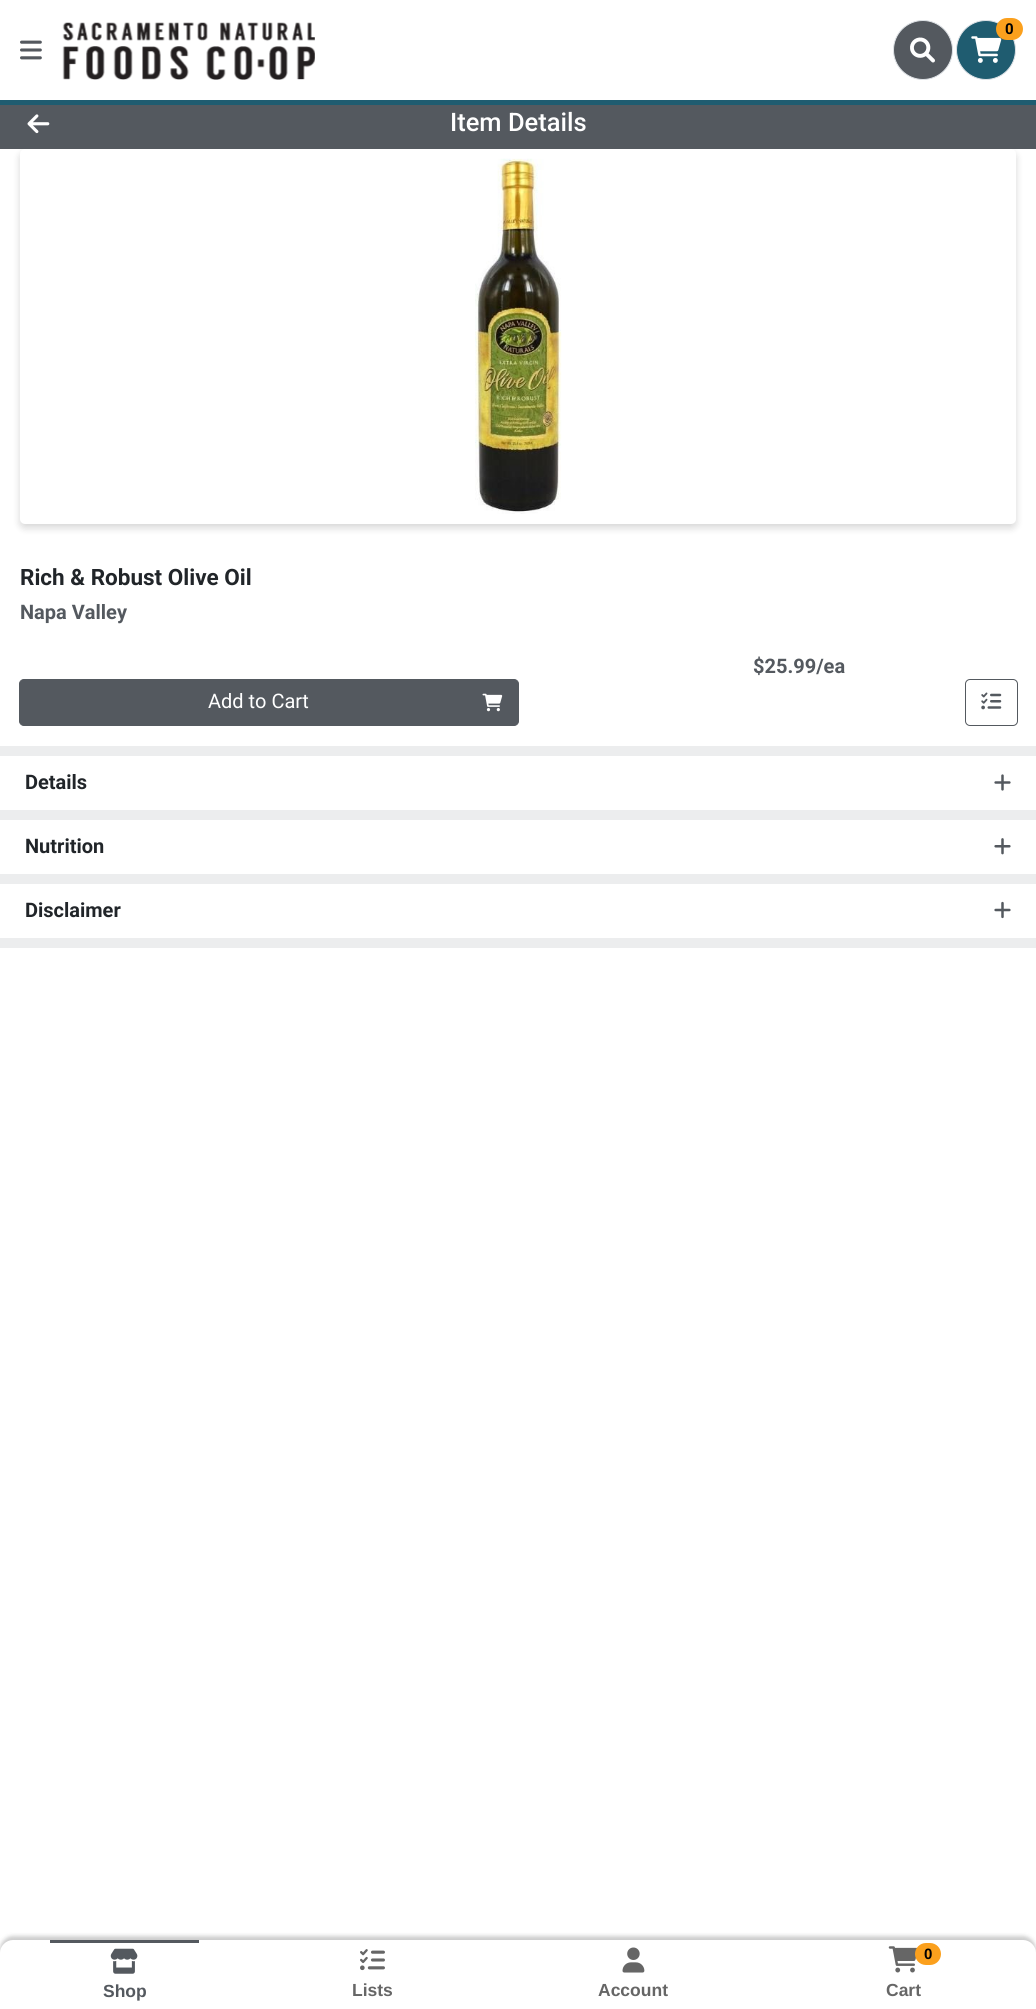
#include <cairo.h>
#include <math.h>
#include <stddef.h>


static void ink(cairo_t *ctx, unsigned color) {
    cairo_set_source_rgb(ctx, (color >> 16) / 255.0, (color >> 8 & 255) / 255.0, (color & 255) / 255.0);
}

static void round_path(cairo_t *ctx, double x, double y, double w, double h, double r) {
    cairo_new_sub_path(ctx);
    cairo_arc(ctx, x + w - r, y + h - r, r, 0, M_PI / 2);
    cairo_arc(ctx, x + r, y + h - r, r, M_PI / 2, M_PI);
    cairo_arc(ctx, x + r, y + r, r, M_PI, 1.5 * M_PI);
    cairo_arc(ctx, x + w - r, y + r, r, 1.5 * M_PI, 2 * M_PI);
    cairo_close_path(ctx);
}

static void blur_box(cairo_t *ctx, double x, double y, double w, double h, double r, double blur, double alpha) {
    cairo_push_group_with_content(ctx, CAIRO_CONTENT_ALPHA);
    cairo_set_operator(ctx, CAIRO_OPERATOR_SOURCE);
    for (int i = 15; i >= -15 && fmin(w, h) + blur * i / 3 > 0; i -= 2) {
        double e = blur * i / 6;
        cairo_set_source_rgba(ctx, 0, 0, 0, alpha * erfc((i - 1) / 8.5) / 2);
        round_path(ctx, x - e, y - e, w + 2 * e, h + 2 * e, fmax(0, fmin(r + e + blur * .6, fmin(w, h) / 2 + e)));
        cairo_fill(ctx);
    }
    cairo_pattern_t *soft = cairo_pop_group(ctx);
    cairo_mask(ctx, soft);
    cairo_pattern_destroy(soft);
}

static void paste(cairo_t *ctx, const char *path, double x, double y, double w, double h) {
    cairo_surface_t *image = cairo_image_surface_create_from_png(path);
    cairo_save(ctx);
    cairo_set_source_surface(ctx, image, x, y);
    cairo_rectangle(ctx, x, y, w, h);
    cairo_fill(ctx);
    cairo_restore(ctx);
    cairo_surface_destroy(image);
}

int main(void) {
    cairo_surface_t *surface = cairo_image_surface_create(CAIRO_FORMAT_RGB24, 1036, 2009);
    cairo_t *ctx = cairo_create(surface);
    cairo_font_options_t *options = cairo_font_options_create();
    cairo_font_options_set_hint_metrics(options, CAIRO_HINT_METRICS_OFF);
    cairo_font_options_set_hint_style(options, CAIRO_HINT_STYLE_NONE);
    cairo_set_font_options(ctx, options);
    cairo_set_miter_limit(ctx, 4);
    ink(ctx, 0xFFFFFF);
    cairo_paint(ctx);
    ink(ctx, 0x1F5C70);
    cairo_rectangle(ctx, 0, 100, 1036, 5);
    cairo_fill(ctx);
    paste(ctx, "media/1.png", 62, 22, 253, 58);
    ink(ctx, 0x54595F);
    cairo_arc(ctx, 923, 50, 29.5, 0, 2 * M_PI);
    cairo_fill_preserve(ctx);
    ink(ctx, 0xDEE2E6);
    cairo_set_line_width(ctx, 1);
    cairo_stroke(ctx);
    paste(ctx, "media/2.png", 910, 37, 25, 26);
    ink(ctx, 0x1F5C70);
    cairo_arc(ctx, 986, 50, 29.5, 0, 2 * M_PI);
    cairo_fill_preserve(ctx);
    ink(ctx, 0xDEE2E6);
    cairo_stroke(ctx);
    paste(ctx, "media/3.png", 971, 36, 31, 27);
    ink(ctx, 0xFBA01D);
    round_path(ctx, 996, 18, 27, 22, 11);
    cairo_fill(ctx);
    cairo_select_font_face(ctx, "Roboto", CAIRO_FONT_SLANT_NORMAL, CAIRO_FONT_WEIGHT_BOLD);
    cairo_set_font_size(ctx, 15);
    ink(ctx, 0x000000);
    cairo_move_to(ctx, 1005, 34);
    cairo_show_text(ctx, "0");
    paste(ctx, "media/4.png", 20, 40, 22, 20);
    ink(ctx, 0x000000);
    blur_box(ctx, 20, 153, 996, 375, 5, 4, 0.16);
    ink(ctx, 0x54595F);
    cairo_rectangle(ctx, 0, 105, 1036, 44);
    cairo_fill(ctx);
    paste(ctx, "media/5.png", 27, 114, 23, 20);
    cairo_select_font_face(ctx, "Roboto Medium", CAIRO_FONT_SLANT_NORMAL, CAIRO_FONT_WEIGHT_NORMAL);
    cairo_set_font_size(ctx, 25.5);
    ink(ctx, 0xFFFFFF);
    cairo_move_to(ctx, 450, 131);
    cairo_show_text(ctx, "Item Details");
    round_path(ctx, 20, 149, 996, 375, 5);
    cairo_fill(ctx);
    paste(ctx, "media/6.png", 475, 158, 87, 356);
    cairo_select_font_face(ctx, "Roboto", CAIRO_FONT_SLANT_NORMAL, CAIRO_FONT_WEIGHT_BOLD);
    cairo_set_font_size(ctx, 22.5);
    ink(ctx, 0x212529);
    cairo_move_to(ctx, 20, 585);
    cairo_show_text(ctx, "Rich & Robust Olive Oil");
    cairo_set_font_size(ctx, 20);
    ink(ctx, 0x54595F);
    cairo_move_to(ctx, 20, 619);
    cairo_show_text(ctx, "Napa Valley");
    cairo_move_to(ctx, 753, 673);
    cairo_show_text(ctx, "$25.99/ea");
    round_path(ctx, 19.5, 679.5, 499, 46, 4.5);
    cairo_fill_preserve(ctx);
    cairo_stroke(ctx);
    cairo_select_font_face(ctx, "Roboto", CAIRO_FONT_SLANT_NORMAL, CAIRO_FONT_WEIGHT_NORMAL);
    ink(ctx, 0xFFFFFF);
    cairo_move_to(ctx, 208, 708);
    cairo_show_text(ctx, "Add to Cart");
    paste(ctx, "media/7.png", 482, 693, 21, 19);
    round_path(ctx, 965.5, 679.5, 52, 46, 4.5);
    ink(ctx, 0x54595F);
    cairo_stroke(ctx);
    paste(ctx, "media/8.png", 981, 692, 21, 18);
    ink(ctx, 0xECEDEE);
    cairo_rectangle(ctx, 0, 746, 1036, 10);
    cairo_fill(ctx);
    cairo_select_font_face(ctx, "Roboto", CAIRO_FONT_SLANT_NORMAL, CAIRO_FONT_WEIGHT_BOLD);
    ink(ctx, 0x212529);
    cairo_move_to(ctx, 25, 789);
    cairo_show_text(ctx, "Details");
    paste(ctx, "media/9.png", 994, 774, 17, 17);
    ink(ctx, 0xECEDEE);
    cairo_rectangle(ctx, 0, 810, 1036, 10);
    cairo_fill(ctx);
    ink(ctx, 0x212529);
    cairo_move_to(ctx, 25, 853);
    cairo_show_text(ctx, "Nutrition");
    paste(ctx, "media/10.png", 994, 838, 17, 17);
    ink(ctx, 0xECEDEE);
    cairo_rectangle(ctx, 0, 874, 1036, 74);
    cairo_fill(ctx);
    ink(ctx, 0xFFFFFF);
    cairo_rectangle(ctx, 0, 884, 1036, 54);
    cairo_fill(ctx);
    ink(ctx, 0x212529);
    cairo_move_to(ctx, 25, 917);
    cairo_show_text(ctx, "Disclaimer");
    paste(ctx, "media/11.png", 994, 901, 17, 18);
    ink(ctx, 0x000000);
    blur_box(ctx, 0, 1936, 1036, 70, 13, 2, 0.2);
    ink(ctx, 0xFFFFFF);
    cairo_new_path(ctx);
    cairo_move_to(ctx, 13, 1940);
    cairo_line_to(ctx, 1023, 1940);
    cairo_curve_to(ctx, 1030, 1940, 1036, 1946, 1036, 1953);
    cairo_line_to(ctx, 1036, 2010);
    cairo_line_to(ctx, 0, 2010);
    cairo_line_to(ctx, 0, 1953);
    cairo_curve_to(ctx, 0, 1946, 6, 1940, 13, 1940);
    cairo_close_path(ctx);
    cairo_fill(ctx);
    ink(ctx, 0x54595F);
    cairo_rectangle(ctx, 50, 1940, 149, 3);
    cairo_fill(ctx);
    paste(ctx, "media/12.png", 110, 1948, 28, 26);
    cairo_select_font_face(ctx, "Liberation Sans", CAIRO_FONT_SLANT_NORMAL, CAIRO_FONT_WEIGHT_BOLD);
    cairo_set_font_size(ctx, 17.5);
    cairo_move_to(ctx, 103, 1997);
    cairo_show_text(ctx, "Shop");
    paste(ctx, "media/13.png", 360, 1949, 25, 22);
    ink(ctx, 0x666666);
    cairo_move_to(ctx, 352, 1996);
    cairo_show_text(ctx, "Lists");
    paste(ctx, "media/14.png", 622, 1947, 23, 26);
    cairo_move_to(ctx, 598, 1996);
    cairo_show_text(ctx, "Account");
    paste(ctx, "media/15.png", 888, 1946, 29, 27);
    ink(ctx, 0xFBA01D);
    round_path(ctx, 915, 1943, 26, 22, 11);
    cairo_fill(ctx);
    cairo_set_font_size(ctx, 15);
    ink(ctx, 0x000000);
    cairo_move_to(ctx, 924, 1959);
    cairo_show_text(ctx, "0");
    cairo_set_font_size(ctx, 17.5);
    ink(ctx, 0x666666);
    cairo_move_to(ctx, 886, 1996);
    cairo_show_text(ctx, "Cart");
    cairo_surface_write_to_png(surface, "image.png");
    cairo_font_options_destroy(options);
    cairo_destroy(ctx);
    cairo_surface_destroy(surface);
    return 0;
}
